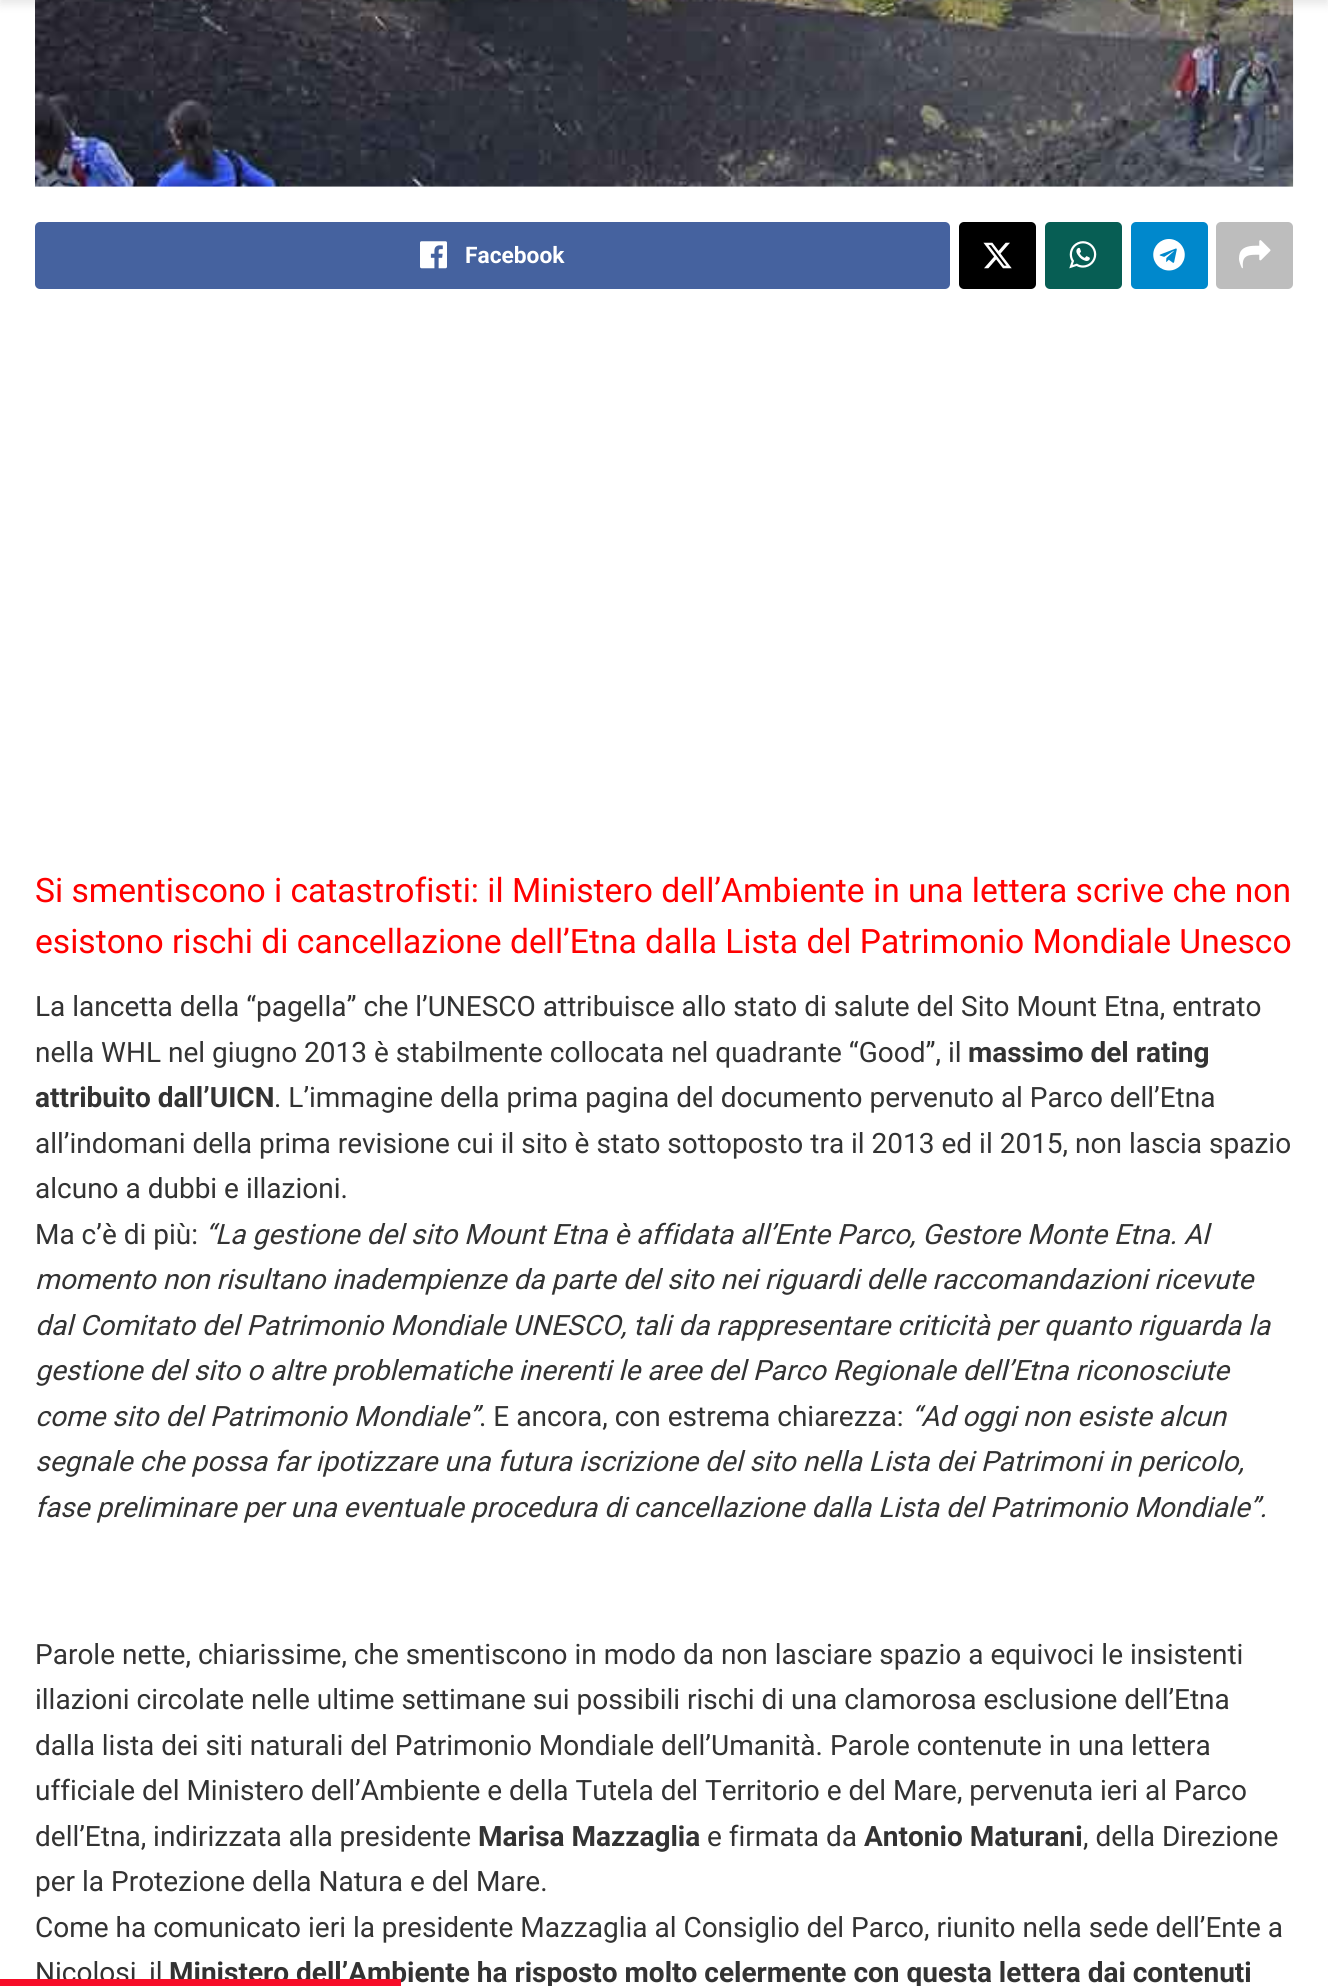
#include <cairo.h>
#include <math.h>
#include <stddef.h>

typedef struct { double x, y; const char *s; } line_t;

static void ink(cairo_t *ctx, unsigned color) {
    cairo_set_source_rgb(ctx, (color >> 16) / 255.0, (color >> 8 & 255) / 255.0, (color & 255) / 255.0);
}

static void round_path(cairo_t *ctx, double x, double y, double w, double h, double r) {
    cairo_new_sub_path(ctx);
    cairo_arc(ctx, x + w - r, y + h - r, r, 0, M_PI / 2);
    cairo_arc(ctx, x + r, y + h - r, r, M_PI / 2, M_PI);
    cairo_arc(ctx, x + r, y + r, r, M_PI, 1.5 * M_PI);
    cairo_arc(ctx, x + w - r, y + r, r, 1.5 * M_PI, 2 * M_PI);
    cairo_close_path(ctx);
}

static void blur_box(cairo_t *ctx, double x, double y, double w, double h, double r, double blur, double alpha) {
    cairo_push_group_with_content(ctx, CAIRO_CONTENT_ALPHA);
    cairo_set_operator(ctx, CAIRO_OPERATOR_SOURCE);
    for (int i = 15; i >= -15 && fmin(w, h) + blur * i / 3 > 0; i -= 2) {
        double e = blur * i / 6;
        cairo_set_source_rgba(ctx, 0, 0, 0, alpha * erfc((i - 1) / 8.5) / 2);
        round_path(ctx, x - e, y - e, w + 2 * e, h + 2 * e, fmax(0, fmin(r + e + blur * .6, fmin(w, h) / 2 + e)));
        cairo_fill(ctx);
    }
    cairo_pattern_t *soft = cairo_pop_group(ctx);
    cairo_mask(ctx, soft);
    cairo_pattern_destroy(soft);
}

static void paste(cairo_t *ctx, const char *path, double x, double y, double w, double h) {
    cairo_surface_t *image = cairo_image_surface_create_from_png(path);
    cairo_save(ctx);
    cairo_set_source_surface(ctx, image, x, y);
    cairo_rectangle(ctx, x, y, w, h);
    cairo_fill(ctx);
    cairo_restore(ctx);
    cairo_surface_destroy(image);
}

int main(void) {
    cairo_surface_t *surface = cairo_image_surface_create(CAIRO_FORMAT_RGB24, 1328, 1986);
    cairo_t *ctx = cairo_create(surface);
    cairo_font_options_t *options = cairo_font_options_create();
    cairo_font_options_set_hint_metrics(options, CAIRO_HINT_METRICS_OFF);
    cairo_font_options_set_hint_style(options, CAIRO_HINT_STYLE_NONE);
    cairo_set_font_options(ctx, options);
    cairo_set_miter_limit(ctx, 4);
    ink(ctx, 0xFFFFFF);
    cairo_paint(ctx);
    ink(ctx, 0xF7F7F7);
    cairo_rectangle(ctx, 35, 186, 1258, 1);
    cairo_fill(ctx);
    paste(ctx, "media/2.png", 1099, 186, 194, 1);
    paste(ctx, "media/1.png", 35, 0, 1259, 187);
    ink(ctx, 0x000000);
    blur_box(ctx, 0, -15, 1328, 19, 0, 5, 0.1);
    ink(ctx, 0x45629F);
    round_path(ctx, 35, 222, 915, 67, 5);
    cairo_fill(ctx);
    paste(ctx, "media/3.png", 420, 241, 27, 28);
    cairo_select_font_face(ctx, "Roboto", CAIRO_FONT_SLANT_NORMAL, CAIRO_FONT_WEIGHT_BOLD);
    cairo_set_font_size(ctx, 22.75);
    ink(ctx, 0xFFFFFF);
    cairo_move_to(ctx, 465, 263);
    cairo_show_text(ctx, "Facebook");
    ink(ctx, 0x000000);
    round_path(ctx, 959, 222, 77, 67, 5);
    cairo_fill(ctx);
    paste(ctx, "media/4.png", 983, 242, 29, 27);
    ink(ctx, 0x075E54);
    round_path(ctx, 1045, 222, 77, 67, 5);
    cairo_fill(ctx);
    paste(ctx, "media/5.png", 1069, 241, 28, 28);
    ink(ctx, 0x0088CC);
    round_path(ctx, 1131, 222, 77, 67, 5);
    cairo_fill(ctx);
    paste(ctx, "media/6.png", 1153, 239, 32, 32);
    ink(ctx, 0xBDBDBD);
    round_path(ctx, 1216, 222, 77, 67, 5);
    cairo_fill(ctx);
    paste(ctx, "media/7.png", 1239, 240, 32, 29);
    cairo_select_font_face(ctx, "Roboto", CAIRO_FONT_SLANT_NORMAL, CAIRO_FONT_WEIGHT_NORMAL);
    cairo_set_font_size(ctx, 33.6);
    ink(ctx, 0xFF0000);
    cairo_move_to(ctx, 35, 902);
    cairo_show_text(ctx, "Si smentiscono i catastrofisti: il Ministero dell’Ambiente in una lettera scrive che non");
    cairo_move_to(ctx, 35, 953);
    cairo_show_text(ctx, "esistono rischi di cancellazione dell’Etna dalla Lista del Patrimonio Mondiale Unesco");
    cairo_set_font_size(ctx, 28);
    ink(ctx, 0x333333);
    cairo_move_to(ctx, 35, 1016);
    cairo_show_text(ctx, "La lancetta della “pagella” che l’UNESCO attribuisce allo stato di salute del Sito Mount Etna, entrato");
    cairo_move_to(ctx, 35, 1062);
    cairo_show_text(ctx, "nella WHL nel giugno 2013 è stabilmente collocata nel quadrante “Good”, il");
    cairo_select_font_face(ctx, "Roboto", CAIRO_FONT_SLANT_NORMAL, CAIRO_FONT_WEIGHT_BOLD);
    cairo_move_to(ctx, 968, 1062);
    cairo_show_text(ctx, "massimo del rating");
    cairo_move_to(ctx, 35, 1107);
    cairo_show_text(ctx, "attribuito dall’UICN");
    cairo_select_font_face(ctx, "Roboto", CAIRO_FONT_SLANT_NORMAL, CAIRO_FONT_WEIGHT_NORMAL);
    {
        static const line_t items[] = {
            {274, 1107, ". L’immagine della prima pagina del documento pervenuto al Parco dell’Etna"},
            {35, 1153, "all’indomani della prima revisione cui il sito è stato sottoposto tra il 2013 ed il 2015, non lascia spazio"},
            {35, 1198, "alcuno a dubbi e illazioni."},
            {35, 1244, "Ma c’è di più:"},
        };
        for (size_t i = 0; i < sizeof items / sizeof *items; i++) {
            cairo_move_to(ctx, items[i].x, items[i].y);
            cairo_show_text(ctx, items[i].s);
        }
    }
    cairo_select_font_face(ctx, "Roboto", CAIRO_FONT_SLANT_ITALIC, CAIRO_FONT_WEIGHT_NORMAL);
    {
        static const line_t items[] = {
            {205, 1244, "“La gestione del sito Mount Etna è affidata all’Ente Parco, Gestore Monte Etna. Al"},
            {35, 1289, "momento non risultano inadempienze da parte del sito nei riguardi delle raccomandazioni ricevute"},
            {35, 1335, "dal Comitato del Patrimonio Mondiale UNESCO, tali da rappresentare criticità per quanto riguarda la"},
            {35, 1380, "gestione del sito o altre problematiche inerenti le aree del Parco Regionale dell’Etna riconosciute"},
            {35, 1426, "come sito del Patrimonio Mondiale”"},
        };
        for (size_t i = 0; i < sizeof items / sizeof *items; i++) {
            cairo_move_to(ctx, items[i].x, items[i].y);
            cairo_show_text(ctx, items[i].s);
        }
    }
    cairo_select_font_face(ctx, "Roboto", CAIRO_FONT_SLANT_NORMAL, CAIRO_FONT_WEIGHT_NORMAL);
    cairo_move_to(ctx, 479, 1426);
    cairo_show_text(ctx, ". E ancora, con estrema chiarezza:");
    cairo_select_font_face(ctx, "Roboto", CAIRO_FONT_SLANT_ITALIC, CAIRO_FONT_WEIGHT_NORMAL);
    {
        static const line_t items[] = {
            {911, 1426, "“Ad oggi non esiste alcun"},
            {35, 1471, "segnale che possa far ipotizzare una futura iscrizione del sito nella Lista dei Patrimoni in pericolo,"},
            {35, 1517, "fase preliminare per una eventuale procedura di cancellazione dalla Lista del Patrimonio Mondiale”."},
        };
        for (size_t i = 0; i < sizeof items / sizeof *items; i++) {
            cairo_move_to(ctx, items[i].x, items[i].y);
            cairo_show_text(ctx, items[i].s);
        }
    }
    cairo_select_font_face(ctx, "Roboto", CAIRO_FONT_SLANT_NORMAL, CAIRO_FONT_WEIGHT_NORMAL);
    {
        static const line_t items[] = {
            {35, 1664, "Parole nette, chiarissime, che smentiscono in modo da non lasciare spazio a equivoci le insistenti"},
            {35, 1709, "illazioni circolate nelle ultime settimane sui possibili rischi di una clamorosa esclusione dell’Etna"},
            {35, 1755, "dalla lista dei siti naturali del Patrimonio Mondiale dell’Umanità. Parole contenute in una lettera"},
            {35, 1800, "ufficiale del Ministero dell’Ambiente e della Tutela del Territorio e del Mare, pervenuta ieri al Parco"},
            {35, 1846, "dell’Etna, indirizzata alla presidente"},
        };
        for (size_t i = 0; i < sizeof items / sizeof *items; i++) {
            cairo_move_to(ctx, items[i].x, items[i].y);
            cairo_show_text(ctx, items[i].s);
        }
    }
    cairo_select_font_face(ctx, "Roboto", CAIRO_FONT_SLANT_NORMAL, CAIRO_FONT_WEIGHT_BOLD);
    cairo_move_to(ctx, 478, 1846);
    cairo_show_text(ctx, "Marisa Mazzaglia");
    cairo_select_font_face(ctx, "Roboto", CAIRO_FONT_SLANT_NORMAL, CAIRO_FONT_WEIGHT_NORMAL);
    cairo_move_to(ctx, 707, 1846);
    cairo_show_text(ctx, "e firmata da");
    cairo_select_font_face(ctx, "Roboto", CAIRO_FONT_SLANT_NORMAL, CAIRO_FONT_WEIGHT_BOLD);
    cairo_move_to(ctx, 864, 1846);
    cairo_show_text(ctx, "Antonio Maturani");
    cairo_select_font_face(ctx, "Roboto", CAIRO_FONT_SLANT_NORMAL, CAIRO_FONT_WEIGHT_NORMAL);
    {
        static const line_t items[] = {
            {1083, 1846, ", della Direzione"},
            {35, 1891, "per la Protezione della Natura e del Mare."},
            {35, 1937, "Come ha comunicato ieri la presidente Mazzaglia al Consiglio del Parco, riunito nella sede dell’Ente a"},
            {35, 1982, "Nicolosi, il"},
        };
        for (size_t i = 0; i < sizeof items / sizeof *items; i++) {
            cairo_move_to(ctx, items[i].x, items[i].y);
            cairo_show_text(ctx, items[i].s);
        }
    }
    cairo_select_font_face(ctx, "Roboto", CAIRO_FONT_SLANT_NORMAL, CAIRO_FONT_WEIGHT_BOLD);
    cairo_move_to(ctx, 169, 1982);
    cairo_show_text(ctx, "Ministero dell’Ambiente ha risposto molto celermente con questa lettera dai contenuti");
    ink(ctx, 0xF70D28);
    cairo_rectangle(ctx, 0, 1979, 401, 7);
    cairo_fill(ctx);
    cairo_surface_write_to_png(surface, "image.png");
    cairo_font_options_destroy(options);
    cairo_destroy(ctx);
    cairo_surface_destroy(surface);
    return 0;
}
